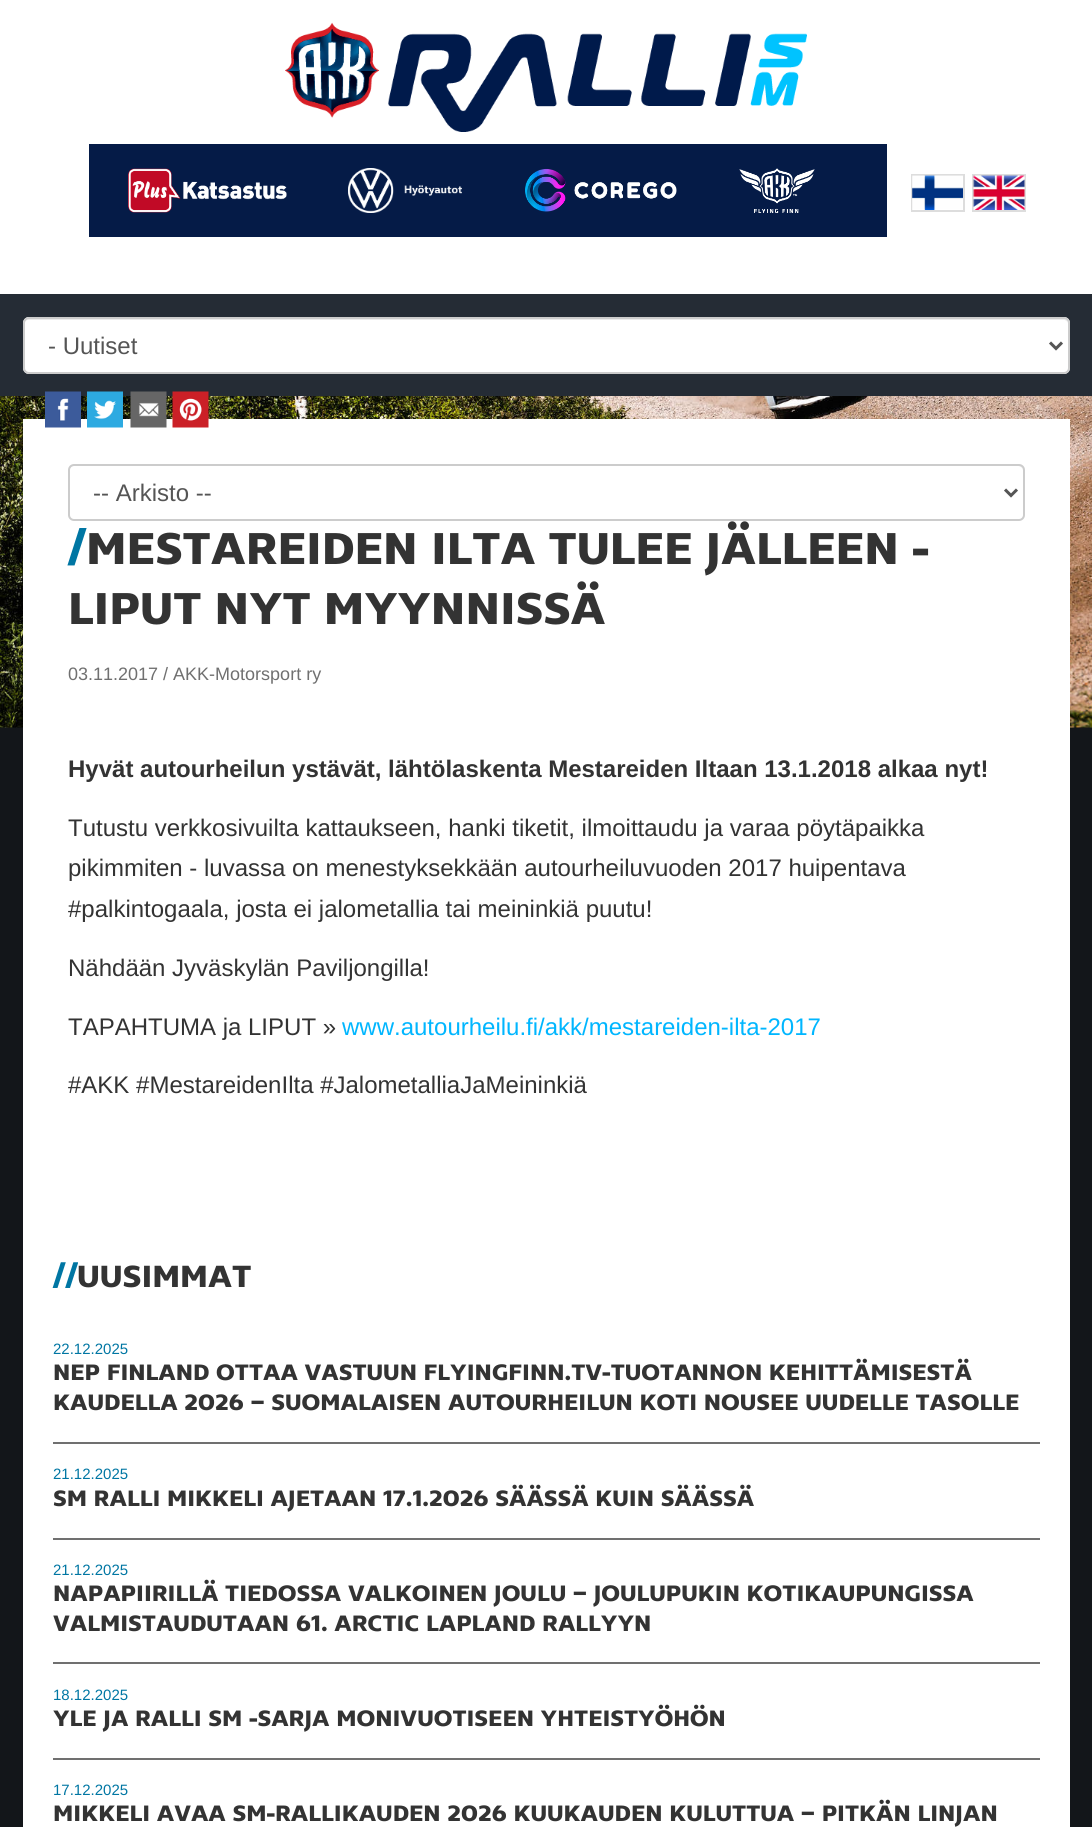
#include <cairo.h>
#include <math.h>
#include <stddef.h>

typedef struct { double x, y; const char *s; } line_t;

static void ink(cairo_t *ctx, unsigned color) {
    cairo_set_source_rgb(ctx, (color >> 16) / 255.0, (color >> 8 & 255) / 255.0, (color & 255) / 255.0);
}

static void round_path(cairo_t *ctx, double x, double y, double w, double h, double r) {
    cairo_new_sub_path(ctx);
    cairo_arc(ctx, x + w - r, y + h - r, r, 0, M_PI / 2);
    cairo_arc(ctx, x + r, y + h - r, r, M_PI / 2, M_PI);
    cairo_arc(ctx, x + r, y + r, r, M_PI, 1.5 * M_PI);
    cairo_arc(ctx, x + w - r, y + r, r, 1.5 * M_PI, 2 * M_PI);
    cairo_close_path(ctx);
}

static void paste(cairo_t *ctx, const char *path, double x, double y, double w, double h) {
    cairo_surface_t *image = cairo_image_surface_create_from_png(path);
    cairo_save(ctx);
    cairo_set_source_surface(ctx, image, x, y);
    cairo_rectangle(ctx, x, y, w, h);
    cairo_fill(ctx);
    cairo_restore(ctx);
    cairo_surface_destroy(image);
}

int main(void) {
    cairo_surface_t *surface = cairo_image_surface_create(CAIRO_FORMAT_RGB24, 1092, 1827);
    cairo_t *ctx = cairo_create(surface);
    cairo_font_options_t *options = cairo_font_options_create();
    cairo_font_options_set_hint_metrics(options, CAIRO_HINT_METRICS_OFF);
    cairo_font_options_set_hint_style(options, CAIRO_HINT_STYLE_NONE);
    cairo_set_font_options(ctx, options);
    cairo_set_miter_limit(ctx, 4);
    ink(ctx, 0x13161A);
    cairo_paint(ctx);
    paste(ctx, "media/1.png", 0, 396, 1092, 332);
    ink(ctx, 0xFFFFFF);
    cairo_rectangle(ctx, 0, 0, 1092, 294);
    cairo_fill(ctx);
    paste(ctx, "media/2.png", 285, 22, 522, 110);
    ink(ctx, 0x051B47);
    cairo_rectangle(ctx, 89, 144, 798, 93);
    cairo_fill(ctx);
    paste(ctx, "media/3.png", 128, 168, 159, 45);
    paste(ctx, "media/4.png", 348, 168, 114, 45);
    paste(ctx, "media/5.png", 525, 168, 152, 44);
    paste(ctx, "media/6.png", 739, 168, 76, 45);
    cairo_rectangle(ctx, 912, 175, 52, 36);
    ink(ctx, 0xDDDDDD);
    cairo_stroke(ctx);
    cairo_rectangle(ctx, 973, 175, 52, 36);
    cairo_stroke(ctx);
    paste(ctx, "media/7.png", 912, 175, 51, 35);
    paste(ctx, "media/8.png", 973, 175, 52, 35);
    ink(ctx, 0x252C35);
    cairo_rectangle(ctx, 0, 294, 1092, 102);
    cairo_fill(ctx);
    ink(ctx, 0xFFFFFF);
    round_path(ctx, 23, 317, 1047, 57, 6);
    cairo_fill(ctx);
    ink(ctx, 0xECECEC);
    cairo_new_path(ctx);
    cairo_move_to(ctx, 28, 320);
    cairo_line_to(ctx, 1064, 320);
    cairo_curve_to(ctx, 1066, 320, 1068, 322, 1068, 324);
    cairo_curve_to(ctx, 1068, 321, 1066, 318, 1063, 318);
    cairo_line_to(ctx, 29, 318);
    cairo_curve_to(ctx, 26, 318, 24, 321, 24, 324);
    cairo_curve_to(ctx, 24, 322, 26, 320, 28, 320);
    cairo_close_path(ctx);
    cairo_fill(ctx);
    round_path(ctx, 24, 318, 1045, 55, 5);
    ink(ctx, 0xCCCCCC);
    cairo_stroke(ctx);
    cairo_new_path(ctx);
    cairo_move_to(ctx, 1050, 342.5);
    cairo_line_to(ctx, 1056, 348.5);
    cairo_line_to(ctx, 1062, 342.5);
    ink(ctx, 0x555555);
    cairo_set_line_width(ctx, 3);
    cairo_stroke(ctx);
    cairo_select_font_face(ctx, "Liberation Sans", CAIRO_FONT_SLANT_NORMAL, CAIRO_FONT_WEIGHT_NORMAL);
    cairo_set_font_size(ctx, 24);
    cairo_move_to(ctx, 48, 354);
    cairo_show_text(ctx, "- Uutiset");
    ink(ctx, 0xFFFFFF);
    cairo_rectangle(ctx, 23, 419, 1047, 1408);
    cairo_fill(ctx);
    paste(ctx, "media/9.png", 45, 391, 36, 37);
    paste(ctx, "media/10.png", 87, 391, 36, 37);
    paste(ctx, "media/11.png", 130, 391, 37, 37);
    paste(ctx, "media/12.png", 172, 391, 37, 37);
    ink(ctx, 0xECECEC);
    cairo_new_path(ctx);
    cairo_move_to(ctx, 74, 466);
    cairo_line_to(ctx, 1018, 466);
    cairo_curve_to(ctx, 1021, 466, 1023, 469, 1023, 471);
    cairo_curve_to(ctx, 1023, 468, 1021, 465, 1018, 465);
    cairo_line_to(ctx, 74, 465);
    cairo_curve_to(ctx, 71, 465, 69, 468, 69, 471);
    cairo_curve_to(ctx, 69, 469, 71, 466, 74, 466);
    cairo_close_path(ctx);
    cairo_fill(ctx);
    round_path(ctx, 69, 465, 955, 55, 5);
    ink(ctx, 0xCCCCCC);
    cairo_set_line_width(ctx, 2);
    cairo_stroke(ctx);
    cairo_new_path(ctx);
    cairo_move_to(ctx, 1005, 489.5);
    cairo_line_to(ctx, 1011, 495.5);
    cairo_line_to(ctx, 1017, 489.5);
    ink(ctx, 0x555555);
    cairo_set_line_width(ctx, 3);
    cairo_stroke(ctx);
    cairo_move_to(ctx, 93, 501);
    cairo_show_text(ctx, "-- Arkisto --");
    cairo_select_font_face(ctx, "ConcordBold", CAIRO_FONT_SLANT_NORMAL, CAIRO_FONT_WEIGHT_BOLD);
    cairo_set_font_size(ctx, 48);
    ink(ctx, 0x0076A3);
    cairo_move_to(ctx, 68, 564);
    cairo_show_text(ctx, "/");
    ink(ctx, 0x333333);
    cairo_move_to(ctx, 86, 564);
    cairo_show_text(ctx, "MESTAREIDEN ILTA TULEE JÄLLEEN -");
    cairo_move_to(ctx, 68, 624);
    cairo_show_text(ctx, "LIPUT NYT MYYNNISSÄ");
    cairo_select_font_face(ctx, "Liberation Sans", CAIRO_FONT_SLANT_NORMAL, CAIRO_FONT_WEIGHT_NORMAL);
    cairo_set_font_size(ctx, 18);
    ink(ctx, 0x707070);
    cairo_move_to(ctx, 68, 680);
    cairo_show_text(ctx, "03.11.2017 / AKK-Motorsport ry");
    cairo_select_font_face(ctx, "Liberation Sans", CAIRO_FONT_SLANT_NORMAL, CAIRO_FONT_WEIGHT_BOLD);
    cairo_set_font_size(ctx, 24);
    ink(ctx, 0x333333);
    cairo_move_to(ctx, 68, 777);
    cairo_show_text(ctx, "Hyvät autourheilun ystävät, lähtölaskenta Mestareiden Iltaan 13.1.2018 alkaa nyt!");
    cairo_select_font_face(ctx, "Liberation Sans", CAIRO_FONT_SLANT_NORMAL, CAIRO_FONT_WEIGHT_NORMAL);
    {
        static const line_t items[] = {
            {68, 836, "Tutustu verkkosivuilta kattaukseen, hanki tiketit, ilmoittaudu ja varaa pöytäpaikka"},
            {68, 876, "pikimmiten - luvassa on menestyksekkään autourheiluvuoden 2017 huipentava"},
            {68, 917, "#palkintogaala, josta ei jalometallia tai meininkiä puutu!"},
            {68, 976, "Nähdään Jyväskylän Paviljongilla!"},
            {68, 1035, "TAPAHTUMA ja LIPUT »"},
        };
        for (size_t i = 0; i < sizeof items / sizeof *items; i++) {
            cairo_move_to(ctx, items[i].x, items[i].y);
            cairo_show_text(ctx, items[i].s);
        }
    }
    ink(ctx, 0x00B6FF);
    cairo_move_to(ctx, 342, 1035);
    cairo_show_text(ctx, "www.autourheilu.fi/akk/mestareiden-ilta-2017");
    ink(ctx, 0x333333);
    cairo_move_to(ctx, 68, 1093);
    cairo_show_text(ctx, "#AKK #MestareidenIlta #JalometalliaJaMeininkiä");
    cairo_select_font_face(ctx, "ConcordBold", CAIRO_FONT_SLANT_NORMAL, CAIRO_FONT_WEIGHT_BOLD);
    cairo_set_font_size(ctx, 33);
    ink(ctx, 0x0076A3);
    cairo_move_to(ctx, 53, 1287);
    cairo_show_text(ctx, "//");
    ink(ctx, 0x333333);
    cairo_move_to(ctx, 77, 1287);
    cairo_show_text(ctx, "UUSIMMAT");
    ink(ctx, 0x707070);
    cairo_rectangle(ctx, 53, 1442, 987, 2);
    cairo_fill(ctx);
    cairo_select_font_face(ctx, "Liberation Sans", CAIRO_FONT_SLANT_NORMAL, CAIRO_FONT_WEIGHT_NORMAL);
    cairo_set_font_size(ctx, 15);
    ink(ctx, 0x0076A3);
    cairo_move_to(ctx, 53, 1354);
    cairo_show_text(ctx, "22.12.2025");
    cairo_select_font_face(ctx, "ConcordBold", CAIRO_FONT_SLANT_NORMAL, CAIRO_FONT_WEIGHT_BOLD);
    cairo_set_font_size(ctx, 24);
    ink(ctx, 0x333333);
    cairo_move_to(ctx, 53, 1380);
    cairo_show_text(ctx, "NEP FINLAND OTTAA VASTUUN FLYINGFINN.TV-TUOTANNON KEHITTÄMISESTÄ");
    cairo_move_to(ctx, 53, 1410);
    cairo_show_text(ctx, "KAUDELLA 2026 – SUOMALAISEN AUTOURHEILUN KOTI NOUSEE UUDELLE TASOLLE");
    ink(ctx, 0x707070);
    cairo_rectangle(ctx, 53, 1538, 987, 2);
    cairo_fill(ctx);
    cairo_select_font_face(ctx, "Liberation Sans", CAIRO_FONT_SLANT_NORMAL, CAIRO_FONT_WEIGHT_NORMAL);
    cairo_set_font_size(ctx, 15);
    ink(ctx, 0x0076A3);
    cairo_move_to(ctx, 53, 1479);
    cairo_show_text(ctx, "21.12.2025");
    cairo_select_font_face(ctx, "ConcordBold", CAIRO_FONT_SLANT_NORMAL, CAIRO_FONT_WEIGHT_BOLD);
    cairo_set_font_size(ctx, 24);
    ink(ctx, 0x333333);
    cairo_move_to(ctx, 53, 1506);
    cairo_show_text(ctx, "SM RALLI MIKKELI AJETAAN 17.1.2026 SÄÄSSÄ KUIN SÄÄSSÄ");
    ink(ctx, 0x707070);
    cairo_rectangle(ctx, 53, 1662, 987, 2);
    cairo_fill(ctx);
    cairo_select_font_face(ctx, "Liberation Sans", CAIRO_FONT_SLANT_NORMAL, CAIRO_FONT_WEIGHT_NORMAL);
    cairo_set_font_size(ctx, 15);
    ink(ctx, 0x0076A3);
    cairo_move_to(ctx, 53, 1575);
    cairo_show_text(ctx, "21.12.2025");
    cairo_select_font_face(ctx, "ConcordBold", CAIRO_FONT_SLANT_NORMAL, CAIRO_FONT_WEIGHT_BOLD);
    cairo_set_font_size(ctx, 24);
    ink(ctx, 0x333333);
    cairo_move_to(ctx, 53, 1601);
    cairo_show_text(ctx, "NAPAPIIRILLÄ TIEDOSSA VALKOINEN JOULU – JOULUPUKIN KOTIKAUPUNGISSA");
    cairo_move_to(ctx, 53, 1631);
    cairo_show_text(ctx, "VALMISTAUDUTAAN 61. ARCTIC LAPLAND RALLYYN");
    ink(ctx, 0x707070);
    cairo_rectangle(ctx, 53, 1758, 987, 2);
    cairo_fill(ctx);
    cairo_select_font_face(ctx, "Liberation Sans", CAIRO_FONT_SLANT_NORMAL, CAIRO_FONT_WEIGHT_NORMAL);
    cairo_set_font_size(ctx, 15);
    ink(ctx, 0x0076A3);
    cairo_move_to(ctx, 53, 1700);
    cairo_show_text(ctx, "18.12.2025");
    cairo_select_font_face(ctx, "ConcordBold", CAIRO_FONT_SLANT_NORMAL, CAIRO_FONT_WEIGHT_BOLD);
    cairo_set_font_size(ctx, 24);
    ink(ctx, 0x333333);
    cairo_move_to(ctx, 53, 1726);
    cairo_show_text(ctx, "YLE JA RALLI SM -SARJA MONIVUOTISEEN YHTEISTYÖHÖN");
    cairo_select_font_face(ctx, "Liberation Sans", CAIRO_FONT_SLANT_NORMAL, CAIRO_FONT_WEIGHT_NORMAL);
    cairo_set_font_size(ctx, 15);
    ink(ctx, 0x0076A3);
    cairo_move_to(ctx, 53, 1795);
    cairo_show_text(ctx, "17.12.2025");
    cairo_select_font_face(ctx, "ConcordBold", CAIRO_FONT_SLANT_NORMAL, CAIRO_FONT_WEIGHT_BOLD);
    cairo_set_font_size(ctx, 24);
    ink(ctx, 0x333333);
    cairo_move_to(ctx, 53, 1821);
    cairo_show_text(ctx, "MIKKELI AVAA SM-RALLIKAUDEN 2026 KUUKAUDEN KULUTTUA – PITKÄN LINJAN");
    cairo_surface_write_to_png(surface, "image.png");
    cairo_font_options_destroy(options);
    cairo_destroy(ctx);
    cairo_surface_destroy(surface);
    return 0;
}
